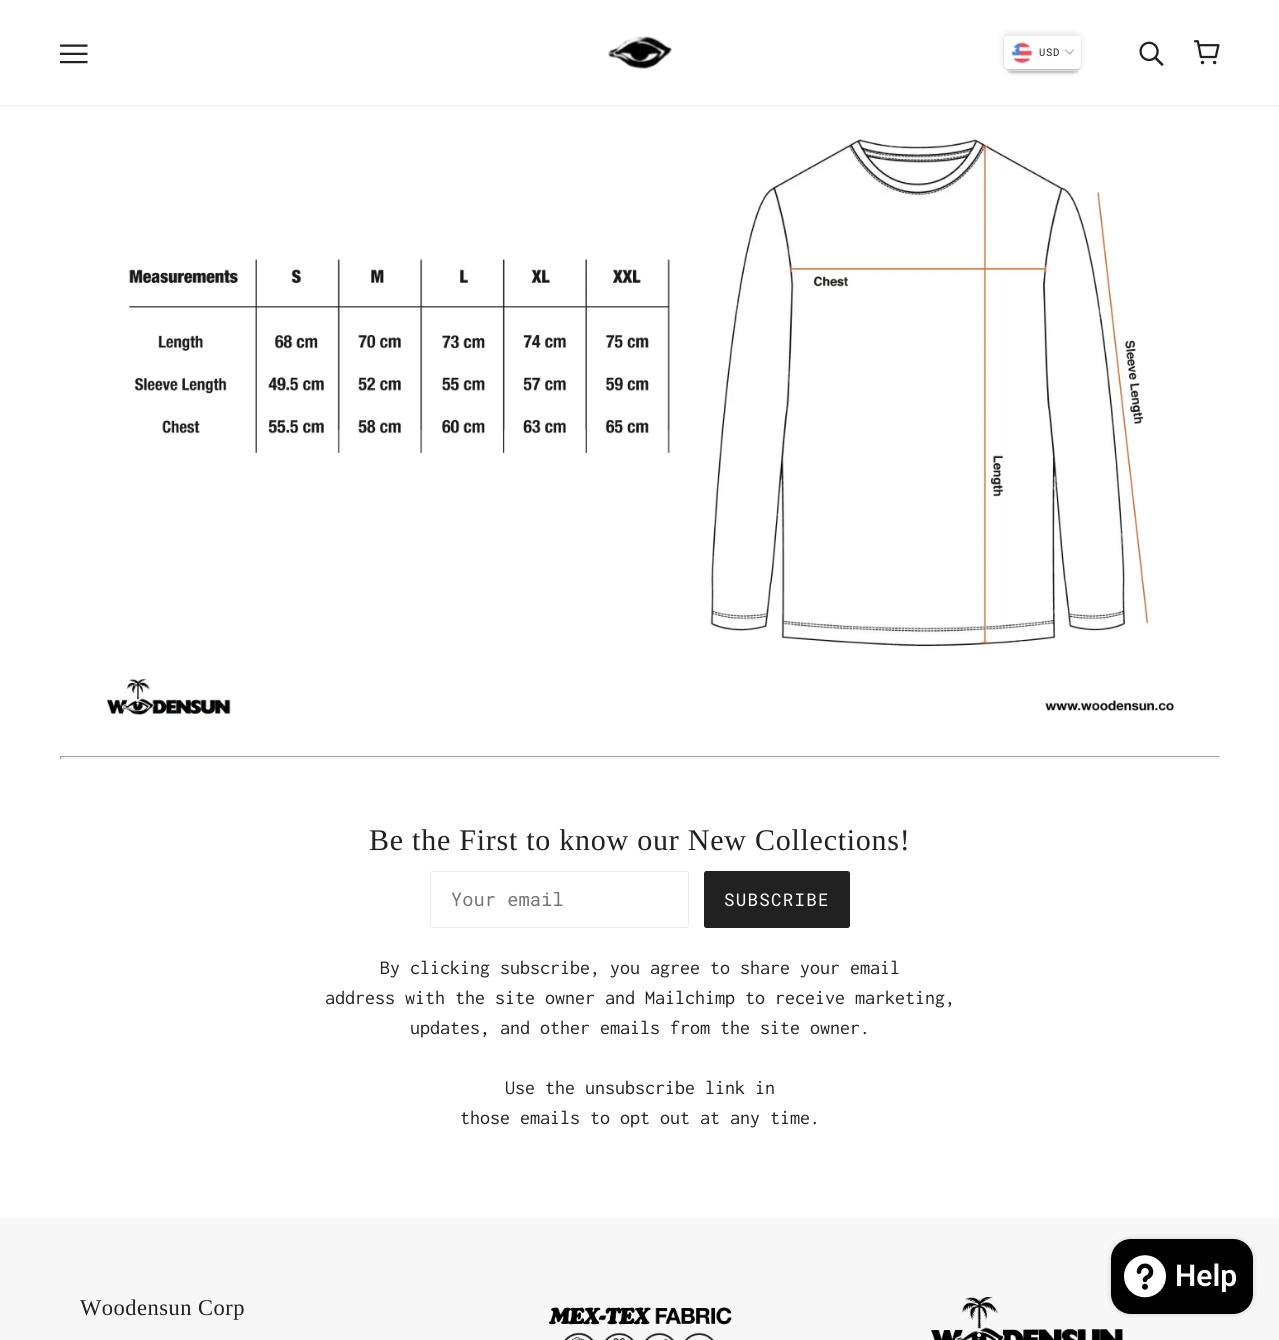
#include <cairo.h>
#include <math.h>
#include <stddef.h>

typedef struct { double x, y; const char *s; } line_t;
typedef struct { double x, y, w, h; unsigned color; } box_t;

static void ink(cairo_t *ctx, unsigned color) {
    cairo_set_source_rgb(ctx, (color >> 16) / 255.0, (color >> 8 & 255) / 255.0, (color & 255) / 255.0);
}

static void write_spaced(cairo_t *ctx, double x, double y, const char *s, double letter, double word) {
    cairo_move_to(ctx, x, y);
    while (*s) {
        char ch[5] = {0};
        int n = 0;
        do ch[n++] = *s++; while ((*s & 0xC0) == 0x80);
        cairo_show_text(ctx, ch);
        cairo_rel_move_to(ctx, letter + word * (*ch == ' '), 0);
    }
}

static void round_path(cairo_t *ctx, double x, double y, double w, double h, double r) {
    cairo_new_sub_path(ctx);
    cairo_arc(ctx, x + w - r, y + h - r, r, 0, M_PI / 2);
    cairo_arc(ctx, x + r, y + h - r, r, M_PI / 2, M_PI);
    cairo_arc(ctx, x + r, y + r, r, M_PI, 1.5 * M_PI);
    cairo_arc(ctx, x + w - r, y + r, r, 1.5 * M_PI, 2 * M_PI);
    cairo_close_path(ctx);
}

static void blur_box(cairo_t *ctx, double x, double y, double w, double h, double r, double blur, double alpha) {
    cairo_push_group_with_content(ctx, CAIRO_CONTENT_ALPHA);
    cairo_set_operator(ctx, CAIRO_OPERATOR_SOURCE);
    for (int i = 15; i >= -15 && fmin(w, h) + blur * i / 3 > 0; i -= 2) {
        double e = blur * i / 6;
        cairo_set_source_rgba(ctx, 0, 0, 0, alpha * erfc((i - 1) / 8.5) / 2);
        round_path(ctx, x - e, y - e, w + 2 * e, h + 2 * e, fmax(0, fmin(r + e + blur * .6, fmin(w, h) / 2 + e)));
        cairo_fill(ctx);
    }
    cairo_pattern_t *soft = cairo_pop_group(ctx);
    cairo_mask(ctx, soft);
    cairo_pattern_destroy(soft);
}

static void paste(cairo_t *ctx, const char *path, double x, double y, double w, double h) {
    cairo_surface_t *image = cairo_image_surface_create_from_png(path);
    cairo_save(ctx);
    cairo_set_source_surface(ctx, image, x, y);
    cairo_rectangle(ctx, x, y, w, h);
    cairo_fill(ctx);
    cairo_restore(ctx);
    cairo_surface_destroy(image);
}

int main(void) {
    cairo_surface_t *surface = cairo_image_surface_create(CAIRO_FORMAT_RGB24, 1279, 1340);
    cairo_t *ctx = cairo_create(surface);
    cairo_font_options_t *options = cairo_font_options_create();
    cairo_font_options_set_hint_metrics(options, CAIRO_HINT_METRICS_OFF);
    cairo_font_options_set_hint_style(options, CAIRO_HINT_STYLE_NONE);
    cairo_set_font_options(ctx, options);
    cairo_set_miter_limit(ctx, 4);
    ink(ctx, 0xFFFFFF);
    cairo_paint(ctx);
    ink(ctx, 0xEAEAEA);
    cairo_rectangle(ctx, 0, 105, 1279, 1);
    cairo_fill(ctx);
    paste(ctx, "media/1.png", 60, 44, 28, 20);
    paste(ctx, "media/2.png", 608, 36, 64, 33);
    ink(ctx, 0xEEEEEE);
    cairo_rectangle(ctx, 1011, 71, 63, 4);
    cairo_fill(ctx);
    ink(ctx, 0x000000);
    blur_box(ctx, 1008, 46, 70, 27, 0.5, 0.5, 0.15);
    ink(ctx, 0xEEEEEE);
    cairo_new_path(ctx);
    cairo_move_to(ctx, 1008, 69);
    cairo_line_to(ctx, 1008, 71);
    cairo_line_to(ctx, 1078, 71);
    cairo_line_to(ctx, 1078, 68);
    cairo_close_path(ctx);
    cairo_fill(ctx);
    ink(ctx, 0x000000);
    blur_box(ctx, 1004, 38, 77, 32, 4, 0.5, 0.15);
    blur_box(ctx, 1004, 35, 76, 33, 4, 4, 0.15);
    ink(ctx, 0xFFFFFF);
    round_path(ctx, 1004, 36, 77, 33, 4);
    cairo_fill(ctx);
    paste(ctx, "media/3.png", 1011, 42, 22, 21);
    cairo_select_font_face(ctx, "Roboto Mono", CAIRO_FONT_SLANT_NORMAL, CAIRO_FONT_WEIGHT_NORMAL);
    cairo_set_font_size(ctx, 10.5);
    ink(ctx, 0x212121);
    write_spaced(ctx, 1039, 56, "USD", 0.75, 0);
    cairo_new_path(ctx);
    cairo_move_to(ctx, 1065.5, 50);
    cairo_line_to(ctx, 1069.5, 54);
    cairo_line_to(ctx, 1073.5, 50);
    ink(ctx, 0xB7B7B7);
    cairo_set_line_width(ctx, 1.4);
    cairo_set_line_cap(ctx, CAIRO_LINE_CAP_ROUND);
    cairo_set_line_join(ctx, CAIRO_LINE_JOIN_ROUND);
    cairo_stroke(ctx);
    paste(ctx, "media/4.png", 1139, 41, 25, 25);
    paste(ctx, "media/5.png", 1194, 40, 26, 25);
    paste(ctx, "media/6.png", 107, 106, 1068, 609);
    {
        static const box_t items[] = {
            {60, 756, 1160, 1, 0x9F9F9F},
            {1219, 756, 1, 3, 0xEEEEEE},
            {60, 758, 1160, 1, 0xEEEEEE},
            {60, 756, 1, 3, 0x9F9F9F},
        };
        for (size_t i = 0; i < sizeof items / sizeof *items; i++) {
            ink(ctx, items[i].color);
            cairo_rectangle(ctx, items[i].x, items[i].y, items[i].w, items[i].h);
            cairo_fill(ctx);
        }
    }
    cairo_select_font_face(ctx, "Liberation Serif", CAIRO_FONT_SLANT_NORMAL, CAIRO_FONT_WEIGHT_NORMAL);
    cairo_set_font_size(ctx, 30);
    ink(ctx, 0x212121);
    write_spaced(ctx, 369, 850, "Be the First to know our New Collections!", 0.75, 0);
    round_path(ctx, 430.5, 871.5, 258, 56, 2);
    ink(ctx, 0xEAEAEA);
    cairo_set_line_width(ctx, 1);
    cairo_set_line_cap(ctx, CAIRO_LINE_CAP_BUTT);
    cairo_set_line_join(ctx, CAIRO_LINE_JOIN_MITER);
    cairo_stroke(ctx);
    cairo_select_font_face(ctx, "Roboto Mono", CAIRO_FONT_SLANT_NORMAL, CAIRO_FONT_WEIGHT_NORMAL);
    cairo_set_font_size(ctx, 18.75);
    ink(ctx, 0x757575);
    cairo_move_to(ctx, 451, 906);
    cairo_show_text(ctx, "Your email");
    ink(ctx, 0x212121);
    round_path(ctx, 704, 871, 146, 57, 2.5);
    cairo_fill(ctx);
    cairo_set_font_size(ctx, 17.5);
    ink(ctx, 0xFFFFFF);
    write_spaced(ctx, 724, 906, "SUBSCRIBE", 1.25, 0);
    cairo_select_font_face(ctx, "Inconsolata", CAIRO_FONT_SLANT_NORMAL, CAIRO_FONT_WEIGHT_NORMAL);
    cairo_set_font_size(ctx, 20);
    ink(ctx, 0x212121);
    {
        static const line_t items[] = {
            {380, 974, "By clicking subscribe, you agree to share your email"},
            {325, 1004, "address with the site owner and Mailchimp to receive marketing,"},
            {410, 1034, "updates, and other emails from the site owner."},
            {505, 1094, "Use the unsubscribe link in"},
            {460, 1124, "those emails to opt out at any time."},
        };
        for (size_t i = 0; i < sizeof items / sizeof *items; i++) {
            cairo_move_to(ctx, items[i].x, items[i].y);
            cairo_show_text(ctx, items[i].s);
        }
    }
    ink(ctx, 0xF7F7F7);
    cairo_rectangle(ctx, 0, 1218, 1279, 122);
    cairo_fill(ctx);
    cairo_select_font_face(ctx, "Liberation Serif", CAIRO_FONT_SLANT_NORMAL, CAIRO_FONT_WEIGHT_NORMAL);
    cairo_set_font_size(ctx, 22.5);
    ink(ctx, 0x212121);
    write_spaced(ctx, 80, 1315, "Woodensun Corp", 0.5, 0);
    paste(ctx, "media/7.png", 548, 1307, 184, 33);
    paste(ctx, "media/8.png", 931, 1297, 192, 43);
    ink(ctx, 0x000000);
    blur_box(ctx, 1111, 1239, 142, 75, 20, 3, 0.15);
    ink(ctx, 0x000000);
    round_path(ctx, 1111, 1239, 142, 75, 20);
    cairo_fill(ctx);
    paste(ctx, "media/9.png", 1124, 1255, 42, 43);
    cairo_select_font_face(ctx, "Roboto SemiBold", CAIRO_FONT_SLANT_NORMAL, CAIRO_FONT_WEIGHT_NORMAL);
    cairo_set_font_size(ctx, 30);
    ink(ctx, 0xFFFFFF);
    cairo_move_to(ctx, 1175, 1286);
    cairo_show_text(ctx, "Help");
    cairo_surface_write_to_png(surface, "image.png");
    cairo_font_options_destroy(options);
    cairo_destroy(ctx);
    cairo_surface_destroy(surface);
    return 0;
}
